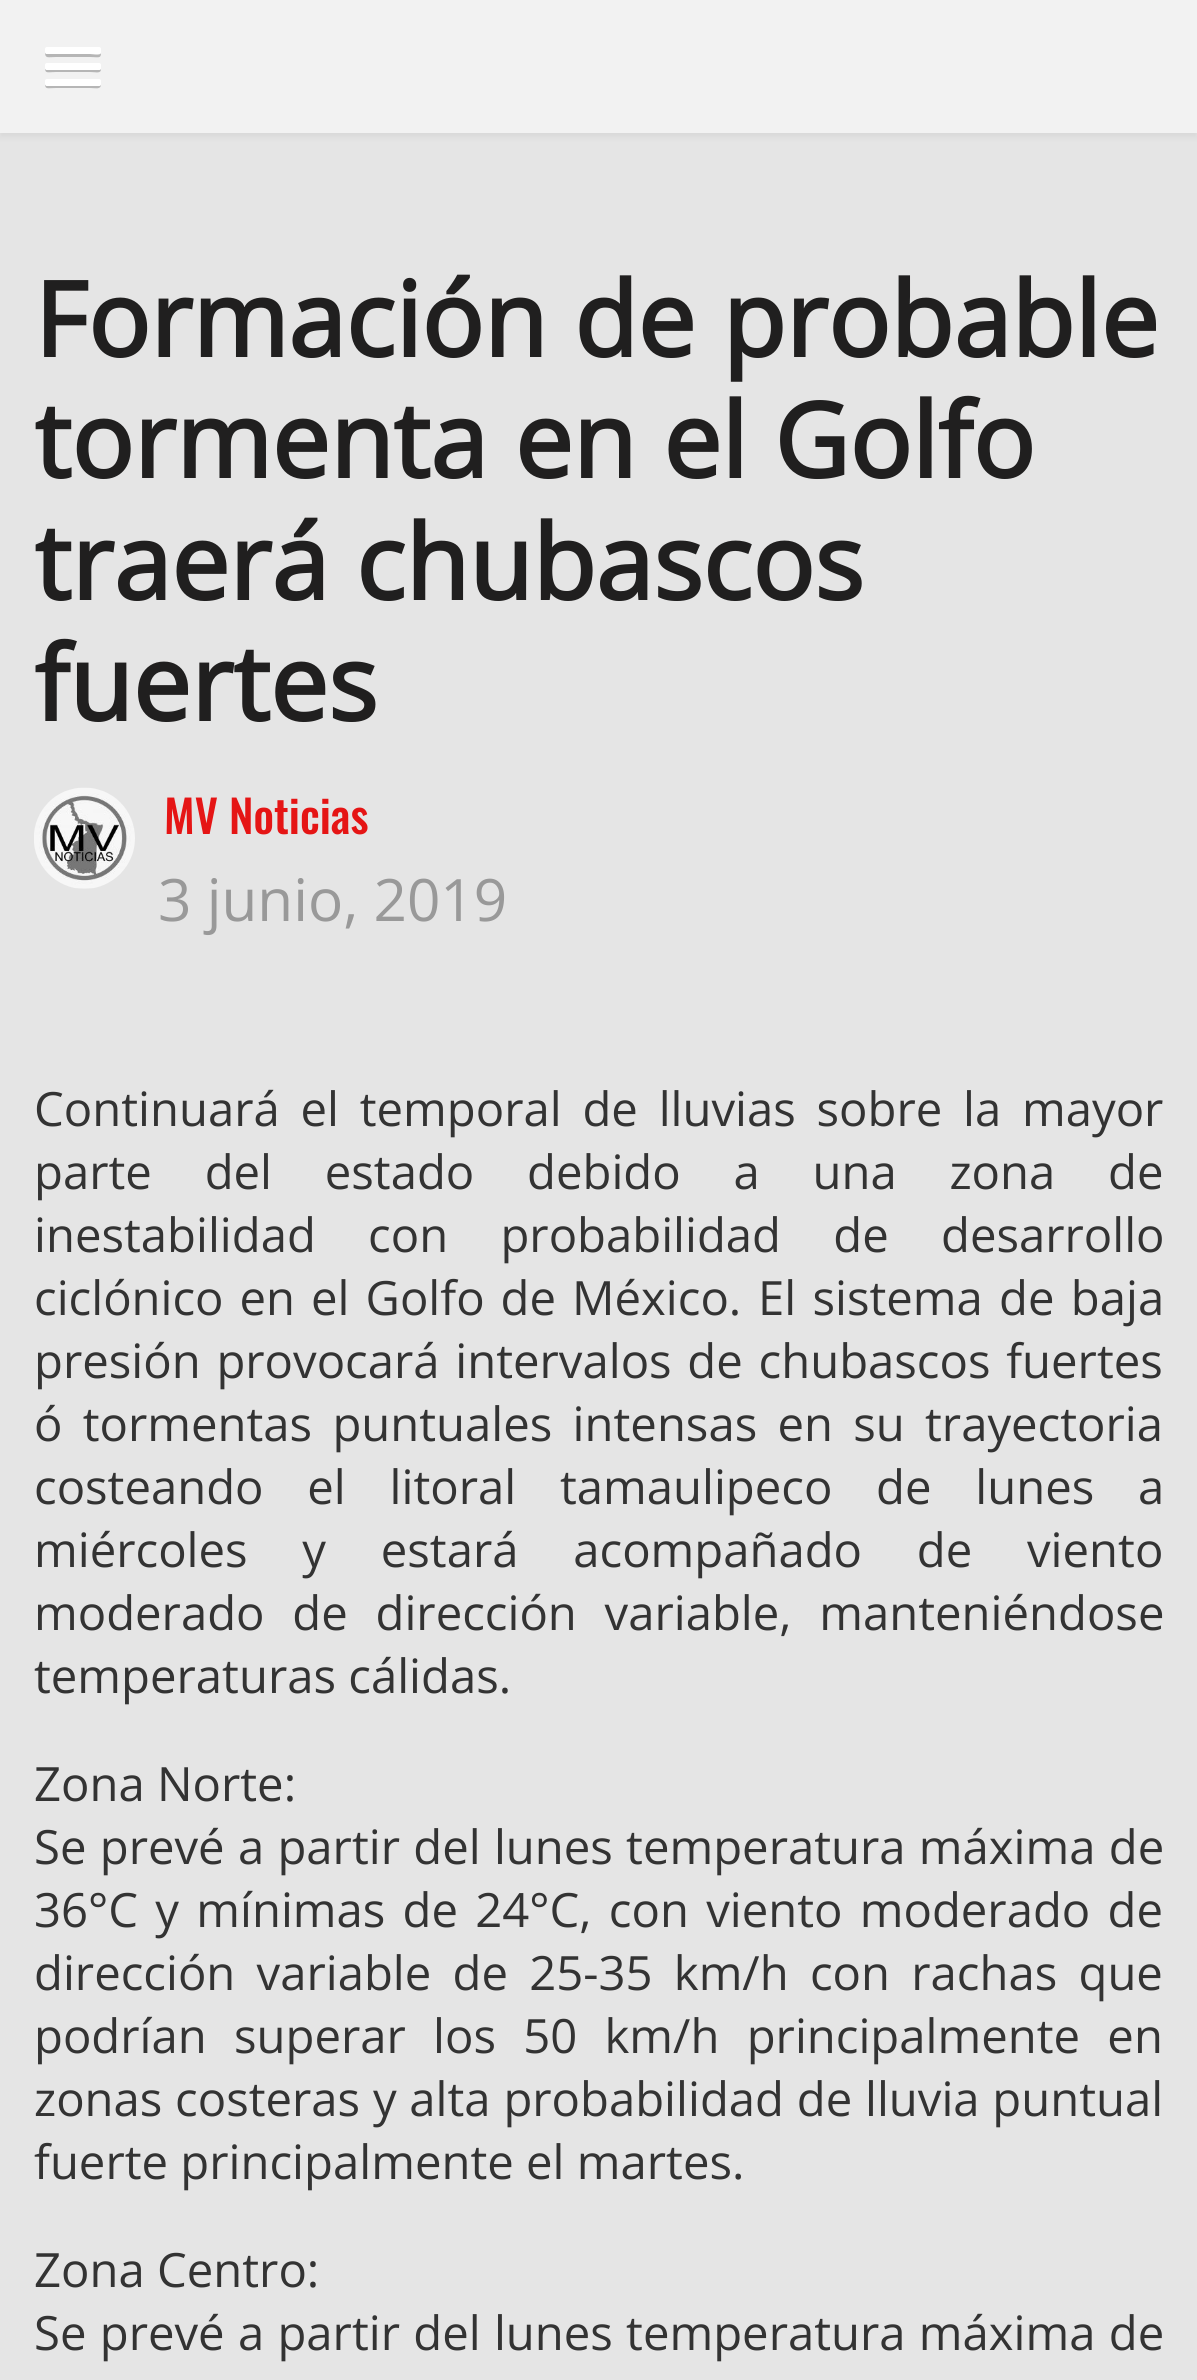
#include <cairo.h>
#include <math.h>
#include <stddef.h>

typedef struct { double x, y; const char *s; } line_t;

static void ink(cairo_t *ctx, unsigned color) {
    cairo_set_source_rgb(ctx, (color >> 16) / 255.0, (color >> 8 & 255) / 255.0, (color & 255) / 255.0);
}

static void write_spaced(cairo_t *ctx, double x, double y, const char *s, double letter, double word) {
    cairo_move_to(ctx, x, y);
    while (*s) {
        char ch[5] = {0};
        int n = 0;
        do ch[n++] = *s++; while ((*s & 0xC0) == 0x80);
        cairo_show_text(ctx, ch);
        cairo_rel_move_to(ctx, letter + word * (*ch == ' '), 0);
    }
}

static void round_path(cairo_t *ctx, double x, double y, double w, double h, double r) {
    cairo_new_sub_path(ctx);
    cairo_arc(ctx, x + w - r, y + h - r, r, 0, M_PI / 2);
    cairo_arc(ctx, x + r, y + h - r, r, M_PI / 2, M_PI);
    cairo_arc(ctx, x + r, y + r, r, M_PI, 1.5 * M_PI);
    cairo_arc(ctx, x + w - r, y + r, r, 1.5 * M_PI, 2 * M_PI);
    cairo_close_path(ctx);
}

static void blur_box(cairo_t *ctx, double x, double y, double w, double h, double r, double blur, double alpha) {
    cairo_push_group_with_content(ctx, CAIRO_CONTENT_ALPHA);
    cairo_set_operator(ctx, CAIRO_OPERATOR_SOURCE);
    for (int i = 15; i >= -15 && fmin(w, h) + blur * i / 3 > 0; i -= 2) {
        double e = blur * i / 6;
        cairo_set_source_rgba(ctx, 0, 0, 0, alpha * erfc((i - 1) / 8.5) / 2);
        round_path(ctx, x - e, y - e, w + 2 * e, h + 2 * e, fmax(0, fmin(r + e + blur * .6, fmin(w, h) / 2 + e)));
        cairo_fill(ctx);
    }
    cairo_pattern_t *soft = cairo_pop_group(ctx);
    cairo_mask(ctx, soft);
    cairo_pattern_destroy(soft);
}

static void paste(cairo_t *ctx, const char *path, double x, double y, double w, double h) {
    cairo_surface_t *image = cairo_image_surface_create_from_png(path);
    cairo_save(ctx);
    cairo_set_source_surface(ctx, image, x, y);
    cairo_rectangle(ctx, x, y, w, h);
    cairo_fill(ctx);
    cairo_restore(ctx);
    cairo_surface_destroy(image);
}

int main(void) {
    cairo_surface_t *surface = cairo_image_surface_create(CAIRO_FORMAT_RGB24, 1197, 2380);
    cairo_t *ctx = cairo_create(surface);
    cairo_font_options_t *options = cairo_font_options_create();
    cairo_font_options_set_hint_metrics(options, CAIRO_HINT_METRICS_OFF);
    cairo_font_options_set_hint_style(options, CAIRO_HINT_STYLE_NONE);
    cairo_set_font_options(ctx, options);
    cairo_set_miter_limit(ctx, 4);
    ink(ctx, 0xE5E5E5);
    cairo_paint(ctx);
    ink(ctx, 0x000000);
    blur_box(ctx, 0, 5, 1197, 132, 0, 3.5, 0.06);
    ink(ctx, 0xF2F2F2);
    cairo_rectangle(ctx, 0, 0, 1197, 133);
    cairo_fill(ctx);
    ink(ctx, 0xB6B6B6);
    cairo_new_path(ctx);
    cairo_move_to(ctx, 45, 52);
    cairo_curve_to(ctx, 45, 59, 48, 57, 56, 57);
    cairo_line_to(ctx, 90, 57);
    cairo_curve_to(ctx, 98, 57, 101, 59, 101, 53);
    cairo_curve_to(ctx, 100, 56, 92, 54, 90, 54);
    cairo_line_to(ctx, 46, 54);
    cairo_close_path(ctx);
    cairo_fill(ctx);
    ink(ctx, 0xFFFFFF);
    round_path(ctx, 45, 47, 56, 7, 2);
    cairo_fill(ctx);
    ink(ctx, 0xB6B6B6);
    cairo_new_path(ctx);
    cairo_move_to(ctx, 45, 68);
    cairo_curve_to(ctx, 45, 74, 48, 72, 56, 72);
    cairo_line_to(ctx, 90, 72);
    cairo_curve_to(ctx, 96, 72, 101, 74, 101, 69);
    cairo_curve_to(ctx, 101, 69, 100, 70, 99, 70);
    cairo_line_to(ctx, 47, 70);
    cairo_curve_to(ctx, 46, 70, 45, 69, 45, 68);
    cairo_close_path(ctx);
    cairo_fill(ctx);
    ink(ctx, 0xFFFFFF);
    round_path(ctx, 45, 63, 56, 7, 2);
    cairo_fill(ctx);
    ink(ctx, 0xB6B6B6);
    cairo_new_path(ctx);
    cairo_move_to(ctx, 45, 83);
    cairo_curve_to(ctx, 45, 90, 47, 88, 56, 88);
    cairo_line_to(ctx, 90, 88);
    cairo_curve_to(ctx, 96, 88, 101, 90, 101, 84);
    cairo_curve_to(ctx, 101, 85, 100, 86, 99, 86);
    cairo_line_to(ctx, 47, 86);
    cairo_curve_to(ctx, 46, 86, 45, 84, 45, 83);
    cairo_close_path(ctx);
    cairo_fill(ctx);
    ink(ctx, 0xFFFFFF);
    round_path(ctx, 45, 79, 56, 7, 2);
    cairo_fill(ctx);
    cairo_select_font_face(ctx, "Open Sans", CAIRO_FONT_SLANT_NORMAL, CAIRO_FONT_WEIGHT_BOLD);
    cairo_set_font_size(ctx, 103.5);
    ink(ctx, 0x201F1F);
    {
        static const line_t items[] = {
            {34, 357, "Formación de probable"},
            {34, 478, "tormenta en el Golfo"},
            {34, 600, "traerá chubascos"},
            {34, 721, "fuertes"},
        };
        for (size_t i = 0; i < sizeof items / sizeof *items; i++) {
            cairo_move_to(ctx, items[i].x, items[i].y);
            cairo_show_text(ctx, items[i].s);
        }
    }
    paste(ctx, "media/1.png", 34, 787, 101, 102);
    cairo_select_font_face(ctx, "Oswald Medium", CAIRO_FONT_SLANT_NORMAL, CAIRO_FONT_WEIGHT_NORMAL);
    cairo_set_font_size(ctx, 45);
    ink(ctx, 0xE51515);
    cairo_move_to(ctx, 164, 834);
    cairo_show_text(ctx, "MV Noticias");
    cairo_select_font_face(ctx, "Open Sans", CAIRO_FONT_SLANT_NORMAL, CAIRO_FONT_WEIGHT_NORMAL);
    cairo_set_font_size(ctx, 58.5);
    ink(ctx, 0x999999);
    cairo_move_to(ctx, 158, 921);
    cairo_show_text(ctx, "3 junio, 2019");
    cairo_set_font_size(ctx, 47.25);
    ink(ctx, 0x333333);
    write_spaced(ctx, 34, 1126, "Continuará el temporal de lluvias sobre la mayor", 0, 8.5);
    write_spaced(ctx, 34, 1189, "parte del estado debido a una zona de", 0, 40.5);
    write_spaced(ctx, 34, 1252, "inestabilidad con probabilidad de desarrollo", 0, 40);
    write_spaced(ctx, 34, 1315, "ciclónico en el Golfo de México.", 0, 3.75);
    write_spaced(ctx, 758, 1315, "El sistema de baja", 0, 4);
    write_spaced(ctx, 34, 1378, "presión provocará intervalos de chubascos fuertes", 0, 3.5);
    write_spaced(ctx, 34, 1441, "ó tormentas puntuales intensas en su trayectoria", 0, 8);
    write_spaced(ctx, 34, 1504, "costeando el litoral tamaulipeco de lunes a", 0, 31.5);
    write_spaced(ctx, 34, 1567, "miércoles y estará acompañado de viento", 0, 42.5);
    write_spaced(ctx, 34, 1630, "moderado de dirección variable, manteniéndose", 0, 15.5);
    cairo_move_to(ctx, 34, 1693);
    cairo_show_text(ctx, "temperaturas cálidas.");
    cairo_move_to(ctx, 34, 1801);
    cairo_show_text(ctx, "Zona Norte:");
    write_spaced(ctx, 34, 1864, "Se prevé a partir del lunes temperatura máxima de", 0, 1);
    write_spaced(ctx, 34, 1927, "36°C y mínimas de 24°C, con viento moderado de", 0, 5);
    write_spaced(ctx, 34, 1990, "dirección variable de 25-35 km/h con rachas que", 0, 9);
    write_spaced(ctx, 34, 2053, "podrían superar los 50 km/h principalmente en", 0, 15);
    write_spaced(ctx, 34, 2116, "zonas costeras y alta probabilidad de lluvia puntual", 0, 0.5);
    cairo_move_to(ctx, 34, 2179);
    cairo_show_text(ctx, "fuerte principalmente el martes.");
    cairo_move_to(ctx, 34, 2287);
    cairo_show_text(ctx, "Zona Centro:");
    write_spaced(ctx, 34, 2350, "Se prevé a partir del lunes temperatura máxima de", 0, 1);
    cairo_surface_write_to_png(surface, "image.png");
    cairo_font_options_destroy(options);
    cairo_destroy(ctx);
    cairo_surface_destroy(surface);
    return 0;
}
